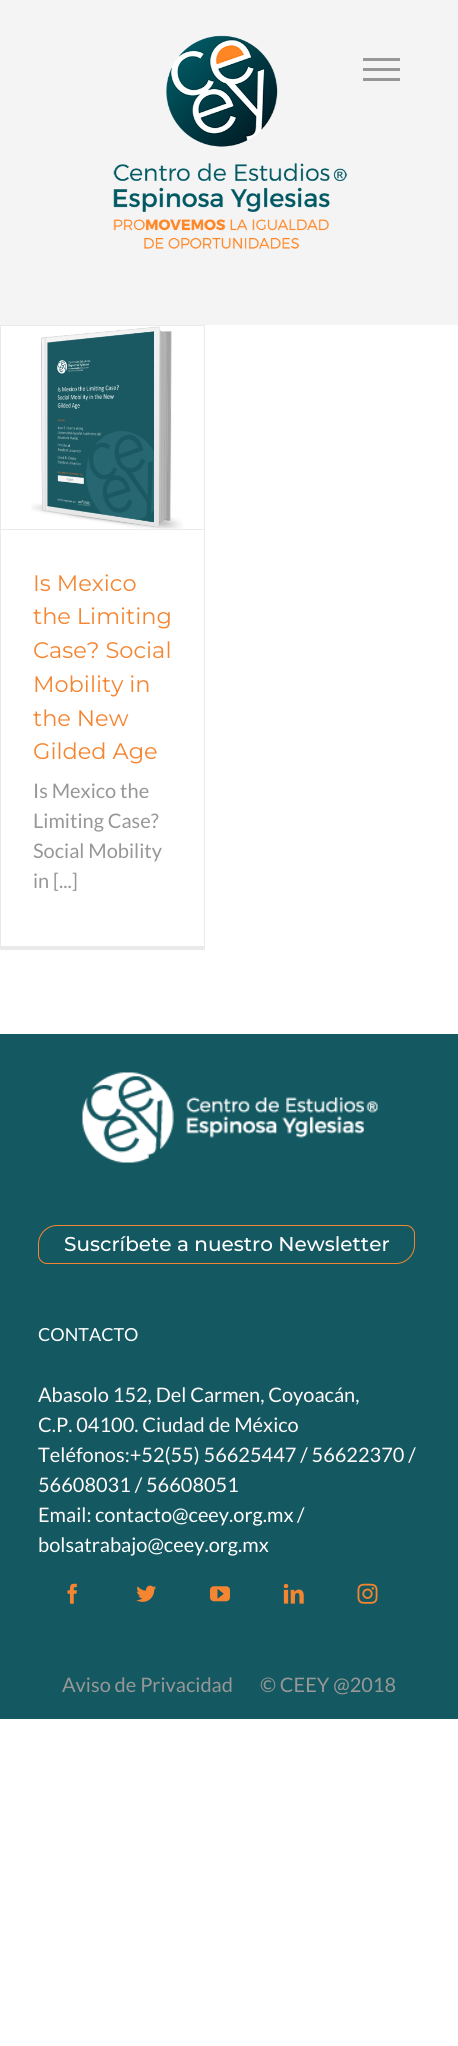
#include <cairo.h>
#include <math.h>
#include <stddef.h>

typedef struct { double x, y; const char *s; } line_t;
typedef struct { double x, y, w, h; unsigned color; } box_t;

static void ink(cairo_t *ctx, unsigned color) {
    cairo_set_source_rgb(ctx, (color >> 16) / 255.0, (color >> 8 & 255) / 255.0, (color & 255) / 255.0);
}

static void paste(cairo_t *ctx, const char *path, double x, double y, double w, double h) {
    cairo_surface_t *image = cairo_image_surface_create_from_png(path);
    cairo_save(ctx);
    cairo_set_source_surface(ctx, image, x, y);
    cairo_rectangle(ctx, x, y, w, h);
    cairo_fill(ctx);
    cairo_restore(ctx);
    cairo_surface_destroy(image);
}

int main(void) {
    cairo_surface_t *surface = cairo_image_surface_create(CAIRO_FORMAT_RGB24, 458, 2046);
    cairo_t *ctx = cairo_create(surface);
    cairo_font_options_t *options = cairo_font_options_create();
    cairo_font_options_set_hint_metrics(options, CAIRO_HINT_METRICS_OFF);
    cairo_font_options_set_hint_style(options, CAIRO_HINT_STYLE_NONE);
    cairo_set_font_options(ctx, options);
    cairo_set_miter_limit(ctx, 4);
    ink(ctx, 0xFFFFFF);
    cairo_paint(ctx);
    ink(ctx, 0xF4F4F5);
    cairo_rectangle(ctx, 0, 0, 458, 325);
    cairo_fill(ctx);
    paste(ctx, "media/1.png", 113, 35, 235, 214);
    {
        static const box_t items[] = {
            {363, 58, 37, 3, 0x969796},
            {363, 68, 37, 3, 0x969796},
            {363, 78, 37, 3, 0x969796},
            {0, 325, 205, 1, 0xEBEAEA},
            {204, 325, 1, 625, 0xEBEAEA},
            {0, 946, 205, 4, 0xEBEAEA},
            {0, 325, 1, 625, 0xEBEAEA},
            {1, 529, 203, 1, 0xEBEAEA},
        };
        for (size_t i = 0; i < sizeof items / sizeof *items; i++) {
            ink(ctx, items[i].color);
            cairo_rectangle(ctx, items[i].x, items[i].y, items[i].w, items[i].h);
            cairo_fill(ctx);
        }
    }
    paste(ctx, "media/2.png", 31, 326, 152, 203);
    cairo_select_font_face(ctx, "Montserrat Thin", CAIRO_FONT_SLANT_NORMAL, CAIRO_FONT_WEIGHT_NORMAL);
    cairo_set_font_size(ctx, 22.5);
    ink(ctx, 0xF58530);
    {
        static const line_t items[] = {
            {33, 591, "Is Mexico"},
            {33, 624, "the Limiting"},
            {33, 658, "Case? Social"},
            {33, 692, "Mobility in"},
            {33, 726, "the New"},
            {33, 759, "Gilded Age"},
        };
        for (size_t i = 0; i < sizeof items / sizeof *items; i++) {
            cairo_move_to(ctx, items[i].x, items[i].y);
            cairo_show_text(ctx, items[i].s);
        }
    }
    cairo_select_font_face(ctx, "Lato", CAIRO_FONT_SLANT_NORMAL, CAIRO_FONT_WEIGHT_NORMAL);
    cairo_set_font_size(ctx, 20);
    ink(ctx, 0x969796);
    {
        static const line_t items[] = {
            {33, 798, "Is Mexico the"},
            {33, 828, "Limiting Case?"},
            {33, 858, "Social Mobility"},
            {33, 888, "in [...]"},
        };
        for (size_t i = 0; i < sizeof items / sizeof *items; i++) {
            cairo_move_to(ctx, items[i].x, items[i].y);
            cairo_show_text(ctx, items[i].s);
        }
    }
    ink(ctx, 0x145861);
    cairo_rectangle(ctx, 0, 1034, 458, 685);
    cairo_fill(ctx);
    paste(ctx, "media/3.png", 82, 1072, 296, 91);
    cairo_new_path(ctx);
    cairo_move_to(ctx, 57, 1225.5);
    cairo_line_to(ctx, 406, 1225.5);
    cairo_curve_to(ctx, 410.5, 1225.5, 414.5, 1229.5, 414.5, 1234);
    cairo_line_to(ctx, 414.5, 1245);
    cairo_curve_to(ctx, 414.5, 1255, 406, 1263.5, 396, 1263.5);
    cairo_line_to(ctx, 47, 1263.5);
    cairo_curve_to(ctx, 42.5, 1263.5, 38.5, 1259.5, 38.5, 1255);
    cairo_line_to(ctx, 38.5, 1244);
    cairo_curve_to(ctx, 38.5, 1234, 47, 1225.5, 57, 1225.5);
    cairo_close_path(ctx);
    ink(ctx, 0xF58531);
    cairo_set_line_width(ctx, 1);
    cairo_stroke(ctx);
    cairo_select_font_face(ctx, "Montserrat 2 Thin", CAIRO_FONT_SLANT_NORMAL, CAIRO_FONT_WEIGHT_NORMAL);
    ink(ctx, 0xFFFFFF);
    cairo_move_to(ctx, 64, 1251);
    cairo_show_text(ctx, "Suscríbete a nuestro Newsletter");
    cairo_select_font_face(ctx, "Lato", CAIRO_FONT_SLANT_NORMAL, CAIRO_FONT_WEIGHT_NORMAL);
    cairo_set_font_size(ctx, 18);
    cairo_move_to(ctx, 38, 1341);
    cairo_show_text(ctx, "CONTACTO");
    cairo_set_font_size(ctx, 20);
    ink(ctx, 0xFFF9F9);
    {
        static const line_t items[] = {
            {38, 1402, "Abasolo 152, Del Carmen, Coyoacán,"},
            {38, 1432, "C.P. 04100. Ciudad de México"},
            {38, 1462, "Teléfonos:+52(55) 56625447 / 56622370 /"},
            {38, 1492, "56608031 / 56608051"},
            {38, 1522, "Email:"},
        };
        for (size_t i = 0; i < sizeof items / sizeof *items; i++) {
            cairo_move_to(ctx, items[i].x, items[i].y);
            cairo_show_text(ctx, items[i].s);
        }
    }
    ink(ctx, 0xFFFFFF);
    cairo_move_to(ctx, 95, 1522);
    cairo_show_text(ctx, "contacto@ceey.org.mx");
    ink(ctx, 0xFFF9F9);
    cairo_move_to(ctx, 297, 1522);
    cairo_show_text(ctx, "/");
    ink(ctx, 0xFFFFFF);
    cairo_move_to(ctx, 38, 1552);
    cairo_show_text(ctx, "bolsatrabajo@ceey.org.mx");
    paste(ctx, "media/4.png", 67, 1583, 10, 21);
    paste(ctx, "media/5.png", 136, 1585, 21, 17);
    paste(ctx, "media/6.png", 210, 1586, 20, 16);
    paste(ctx, "media/7.png", 283, 1583, 21, 21);
    paste(ctx, "media/8.png", 357, 1583, 21, 21);
    ink(ctx, 0x969796);
    cairo_move_to(ctx, 62, 1692);
    cairo_show_text(ctx, "Aviso de Privacidad");
    cairo_move_to(ctx, 260, 1692);
    cairo_show_text(ctx, "© CEEY @2018");
    cairo_surface_write_to_png(surface, "image.png");
    cairo_font_options_destroy(options);
    cairo_destroy(ctx);
    cairo_surface_destroy(surface);
    return 0;
}
